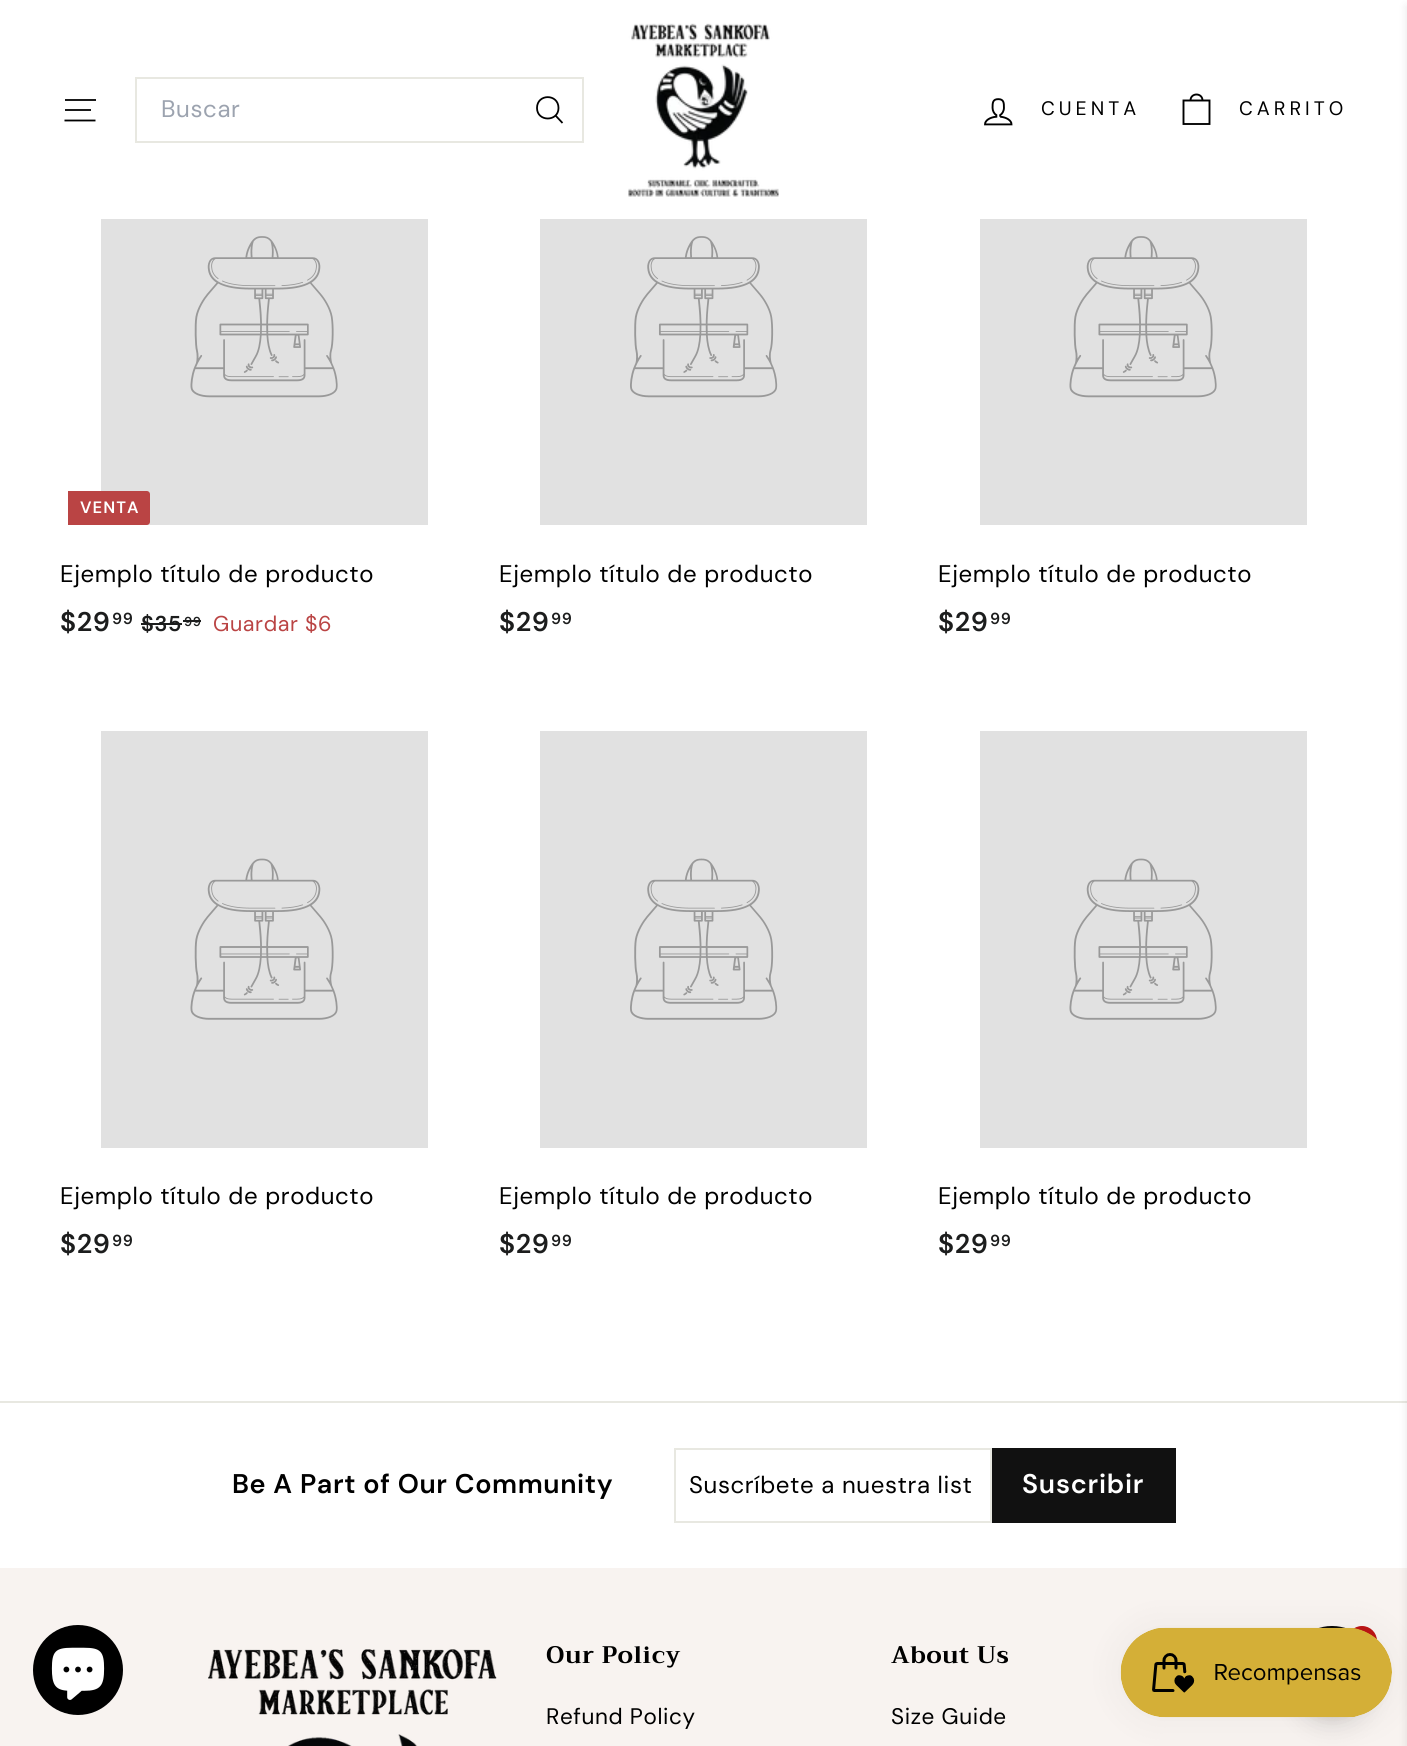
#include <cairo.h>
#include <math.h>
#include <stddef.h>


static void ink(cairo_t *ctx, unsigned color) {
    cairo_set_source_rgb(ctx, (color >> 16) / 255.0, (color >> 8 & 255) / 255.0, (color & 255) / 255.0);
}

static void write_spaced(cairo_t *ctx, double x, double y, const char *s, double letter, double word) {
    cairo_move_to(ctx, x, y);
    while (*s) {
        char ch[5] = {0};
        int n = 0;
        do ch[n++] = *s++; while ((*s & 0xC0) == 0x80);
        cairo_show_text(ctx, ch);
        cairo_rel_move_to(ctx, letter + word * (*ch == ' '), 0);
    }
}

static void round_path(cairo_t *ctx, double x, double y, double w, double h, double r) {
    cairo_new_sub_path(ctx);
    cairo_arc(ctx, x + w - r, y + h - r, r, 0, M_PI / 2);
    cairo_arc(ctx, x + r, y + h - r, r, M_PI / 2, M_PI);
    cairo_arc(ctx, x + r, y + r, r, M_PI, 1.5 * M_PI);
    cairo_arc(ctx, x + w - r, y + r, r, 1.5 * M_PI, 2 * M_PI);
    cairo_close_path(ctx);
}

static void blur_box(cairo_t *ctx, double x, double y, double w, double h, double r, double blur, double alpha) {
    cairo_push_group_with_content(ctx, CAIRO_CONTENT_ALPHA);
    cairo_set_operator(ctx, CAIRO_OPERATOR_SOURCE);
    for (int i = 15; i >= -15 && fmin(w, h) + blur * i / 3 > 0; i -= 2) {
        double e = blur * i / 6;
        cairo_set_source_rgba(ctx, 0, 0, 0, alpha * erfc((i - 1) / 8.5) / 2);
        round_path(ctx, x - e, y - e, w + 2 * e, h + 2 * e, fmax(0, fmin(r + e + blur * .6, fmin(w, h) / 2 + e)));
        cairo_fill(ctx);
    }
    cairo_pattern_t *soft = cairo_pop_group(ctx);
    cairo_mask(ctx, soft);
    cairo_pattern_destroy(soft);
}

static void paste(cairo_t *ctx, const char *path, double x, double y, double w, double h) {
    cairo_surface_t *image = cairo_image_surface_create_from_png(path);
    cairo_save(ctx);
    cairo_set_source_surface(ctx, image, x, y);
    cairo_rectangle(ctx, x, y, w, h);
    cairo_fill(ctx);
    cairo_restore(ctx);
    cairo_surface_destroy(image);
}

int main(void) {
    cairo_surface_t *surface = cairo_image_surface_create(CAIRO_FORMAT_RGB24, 1407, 1746);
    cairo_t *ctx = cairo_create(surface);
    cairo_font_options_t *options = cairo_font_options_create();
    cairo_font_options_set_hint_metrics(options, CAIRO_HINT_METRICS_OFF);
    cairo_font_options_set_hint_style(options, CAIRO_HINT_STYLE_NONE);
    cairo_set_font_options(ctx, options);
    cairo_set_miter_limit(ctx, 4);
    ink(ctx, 0xFFFFFF);
    cairo_paint(ctx);
    ink(ctx, 0xE8E8E1);
    cairo_rectangle(ctx, 0, 1401, 1407, 2);
    cairo_fill(ctx);
    ink(ctx, 0xF8F3F0);
    cairo_rectangle(ctx, 0, 1568, 1407, 178);
    cairo_fill(ctx);
    ink(ctx, 0x000000);
    blur_box(ctx, 1407, 6, 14, 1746, 0, 4.5, 0.1);
    blur_box(ctx, 1290, 1635, 84, 84, 42, 4.5, 0.05);
    blur_box(ctx, 1292, 1646, 81, 81, 40.5, 11, 0.1);
    ink(ctx, 0x000000);
    cairo_arc(ctx, 1332, 1671, 45, 0, 2 * M_PI);
    cairo_fill(ctx);
    ink(ctx, 0xBC1414);
    cairo_arc(ctx, 1362, 1641, 15, 0, 2 * M_PI);
    cairo_fill(ctx);
    ink(ctx, 0x1A1A1A);
    cairo_rectangle(ctx, 65, 99, 31, 2);
    cairo_fill(ctx);
    cairo_rectangle(ctx, 65, 109, 26, 2);
    cairo_fill(ctx);
    cairo_new_path(ctx);
    cairo_move_to(ctx, 64.5, 120.5);
    cairo_line_to(ctx, 95.5, 120.5);
    ink(ctx, 0x000000);
    cairo_set_line_width(ctx, 1.8);
    cairo_stroke(ctx);
    cairo_rectangle(ctx, 136, 78, 447, 64);
    ink(ctx, 0xE8E8E1);
    cairo_set_line_width(ctx, 2);
    cairo_stroke(ctx);
    cairo_select_font_face(ctx, "DM Sans", CAIRO_FONT_SLANT_NORMAL, CAIRO_FONT_WEIGHT_NORMAL);
    cairo_set_font_size(ctx, 24);
    ink(ctx, 0x9CA3AF);
    write_spaced(ctx, 161, 117, "Buscar", 0.6, 0);
    cairo_new_path(ctx);
    cairo_move_to(ctx, 558.5, 108);
    cairo_curve_to(ctx, 558.5, 122, 537, 122, 537, 108);
    cairo_curve_to(ctx, 537, 93.5, 558.5, 93.5, 558.5, 108);
    cairo_move_to(ctx, 562.5, 123);
    cairo_line_to(ctx, 555.5, 115.5);
    ink(ctx, 0x000000);
    cairo_set_line_width(ctx, 1.8);
    cairo_stroke(ctx);
    paste(ctx, "media/1.png", 628, 23, 151, 174);
    paste(ctx, "media/2.png", 984, 98, 29, 28);
    cairo_select_font_face(ctx, "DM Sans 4", CAIRO_FONT_SLANT_NORMAL, CAIRO_FONT_WEIGHT_NORMAL);
    cairo_set_font_size(ctx, 19.5);
    write_spaced(ctx, 1041, 115, "CUENTA", 4, 0);
    cairo_new_path(ctx);
    cairo_move_to(ctx, 1190.5, 100.5);
    cairo_curve_to(ctx, 1190.5, 92.5, 1202.5, 92.5, 1202.5, 100.5);
    cairo_move_to(ctx, 1183.5, 100.5);
    cairo_line_to(ctx, 1209.5, 100.5);
    cairo_line_to(ctx, 1209.5, 124);
    cairo_line_to(ctx, 1183.5, 124);
    cairo_close_path(ctx);
    cairo_set_line_width(ctx, 1.9);
    cairo_stroke(ctx);
    write_spaced(ctx, 1239, 115, "CARRITO", 4, 0);
    ink(ctx, 0xE1E1E1);
    cairo_rectangle(ctx, 101, 219, 327, 306);
    cairo_fill(ctx);
    paste(ctx, "media/3.png", 190, 236, 148, 162);
    ink(ctx, 0xBA4444);
    cairo_new_path(ctx);
    cairo_move_to(ctx, 68, 491);
    cairo_line_to(ctx, 147, 491);
    cairo_curve_to(ctx, 148.5, 491, 150, 492.5, 150, 494);
    cairo_line_to(ctx, 150, 522);
    cairo_curve_to(ctx, 150, 523.5, 148.5, 525, 147, 525);
    cairo_line_to(ctx, 68, 525);
    cairo_close_path(ctx);
    cairo_fill(ctx);
    cairo_select_font_face(ctx, "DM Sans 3 SemiBold", CAIRO_FONT_SLANT_NORMAL, CAIRO_FONT_WEIGHT_NORMAL);
    cairo_set_font_size(ctx, 16.5);
    ink(ctx, 0xFFFFFF);
    write_spaced(ctx, 80, 513, "VENTA", 1, 0);
    cairo_select_font_face(ctx, "DM Sans", CAIRO_FONT_SLANT_NORMAL, CAIRO_FONT_WEIGHT_NORMAL);
    cairo_set_font_size(ctx, 24);
    ink(ctx, 0x000000);
    write_spaced(ctx, 60, 582, "Ejemplo título de producto", 0.6, 0);
    cairo_select_font_face(ctx, "DM Sans SemiBold", CAIRO_FONT_SLANT_NORMAL, CAIRO_FONT_WEIGHT_NORMAL);
    cairo_set_font_size(ctx, 27);
    ink(ctx, 0x1C1D1D);
    write_spaced(ctx, 60, 631, "$29", 0.6, 0);
    cairo_select_font_face(ctx, "DM Sans 3 SemiBold", CAIRO_FONT_SLANT_NORMAL, CAIRO_FONT_WEIGHT_NORMAL);
    cairo_set_font_size(ctx, 16);
    write_spaced(ctx, 112, 624, "99", 0.6, 0);
    cairo_select_font_face(ctx, "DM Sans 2 SemiBold", CAIRO_FONT_SLANT_NORMAL, CAIRO_FONT_WEIGHT_NORMAL);
    cairo_set_font_size(ctx, 21.5);
    write_spaced(ctx, 141, 631, "$35", 0.6, 0);
    cairo_rectangle(ctx, 141, 623, 41, 2);
    cairo_fill(ctx);
    cairo_select_font_face(ctx, "DM Sans 3 SemiBold", CAIRO_FONT_SLANT_NORMAL, CAIRO_FONT_WEIGHT_NORMAL);
    cairo_set_font_size(ctx, 13);
    write_spaced(ctx, 184, 626, "99", 0.6, 0);
    cairo_rectangle(ctx, 183, 620, 18, 2);
    cairo_fill(ctx);
    cairo_select_font_face(ctx, "DM Sans 3", CAIRO_FONT_SLANT_NORMAL, CAIRO_FONT_WEIGHT_NORMAL);
    cairo_set_font_size(ctx, 21.5);
    ink(ctx, 0xBA4444);
    write_spaced(ctx, 213, 631, "Guardar $6", 0.6, 0);
    ink(ctx, 0xE1E1E1);
    cairo_rectangle(ctx, 540, 219, 327, 306);
    cairo_fill(ctx);
    paste(ctx, "media/4.png", 630, 236, 148, 162);
    cairo_select_font_face(ctx, "DM Sans", CAIRO_FONT_SLANT_NORMAL, CAIRO_FONT_WEIGHT_NORMAL);
    cairo_set_font_size(ctx, 24);
    ink(ctx, 0x000000);
    write_spaced(ctx, 499, 582, "Ejemplo título de producto", 0.6, 0);
    cairo_select_font_face(ctx, "DM Sans SemiBold", CAIRO_FONT_SLANT_NORMAL, CAIRO_FONT_WEIGHT_NORMAL);
    cairo_set_font_size(ctx, 27);
    ink(ctx, 0x1C1D1D);
    write_spaced(ctx, 499, 631, "$29", 0.6, 0);
    cairo_select_font_face(ctx, "DM Sans 3 SemiBold", CAIRO_FONT_SLANT_NORMAL, CAIRO_FONT_WEIGHT_NORMAL);
    cairo_set_font_size(ctx, 16);
    write_spaced(ctx, 551, 624, "99", 0.6, 0);
    ink(ctx, 0xE1E1E1);
    cairo_rectangle(ctx, 980, 219, 327, 306);
    cairo_fill(ctx);
    paste(ctx, "media/3.png", 1069, 236, 148, 162);
    cairo_select_font_face(ctx, "DM Sans", CAIRO_FONT_SLANT_NORMAL, CAIRO_FONT_WEIGHT_NORMAL);
    cairo_set_font_size(ctx, 24);
    ink(ctx, 0x000000);
    write_spaced(ctx, 938, 582, "Ejemplo título de producto", 0.6, 0);
    cairo_select_font_face(ctx, "DM Sans SemiBold", CAIRO_FONT_SLANT_NORMAL, CAIRO_FONT_WEIGHT_NORMAL);
    cairo_set_font_size(ctx, 27);
    ink(ctx, 0x1C1D1D);
    write_spaced(ctx, 938, 631, "$29", 0.6, 0);
    cairo_select_font_face(ctx, "DM Sans 3 SemiBold", CAIRO_FONT_SLANT_NORMAL, CAIRO_FONT_WEIGHT_NORMAL);
    cairo_set_font_size(ctx, 16);
    write_spaced(ctx, 990, 624, "99", 0.6, 0);
    ink(ctx, 0xE1E1E1);
    cairo_rectangle(ctx, 101, 731, 327, 417);
    cairo_fill(ctx);
    paste(ctx, "media/5.png", 190, 858, 148, 162);
    cairo_select_font_face(ctx, "DM Sans", CAIRO_FONT_SLANT_NORMAL, CAIRO_FONT_WEIGHT_NORMAL);
    cairo_set_font_size(ctx, 24);
    ink(ctx, 0x000000);
    write_spaced(ctx, 60, 1204, "Ejemplo título de producto", 0.6, 0);
    cairo_select_font_face(ctx, "DM Sans SemiBold", CAIRO_FONT_SLANT_NORMAL, CAIRO_FONT_WEIGHT_NORMAL);
    cairo_set_font_size(ctx, 27);
    ink(ctx, 0x1C1D1D);
    write_spaced(ctx, 60, 1253, "$29", 0.6, 0);
    cairo_select_font_face(ctx, "DM Sans 3 SemiBold", CAIRO_FONT_SLANT_NORMAL, CAIRO_FONT_WEIGHT_NORMAL);
    cairo_set_font_size(ctx, 16);
    write_spaced(ctx, 112, 1246, "99", 0.6, 0);
    ink(ctx, 0xE1E1E1);
    cairo_rectangle(ctx, 540, 731, 327, 417);
    cairo_fill(ctx);
    paste(ctx, "media/6.png", 630, 858, 148, 162);
    cairo_select_font_face(ctx, "DM Sans", CAIRO_FONT_SLANT_NORMAL, CAIRO_FONT_WEIGHT_NORMAL);
    cairo_set_font_size(ctx, 24);
    ink(ctx, 0x000000);
    write_spaced(ctx, 499, 1204, "Ejemplo título de producto", 0.6, 0);
    cairo_select_font_face(ctx, "DM Sans SemiBold", CAIRO_FONT_SLANT_NORMAL, CAIRO_FONT_WEIGHT_NORMAL);
    cairo_set_font_size(ctx, 27);
    ink(ctx, 0x1C1D1D);
    write_spaced(ctx, 499, 1253, "$29", 0.6, 0);
    cairo_select_font_face(ctx, "DM Sans 3 SemiBold", CAIRO_FONT_SLANT_NORMAL, CAIRO_FONT_WEIGHT_NORMAL);
    cairo_set_font_size(ctx, 16);
    write_spaced(ctx, 551, 1246, "99", 0.6, 0);
    ink(ctx, 0xE1E1E1);
    cairo_rectangle(ctx, 980, 731, 327, 417);
    cairo_fill(ctx);
    paste(ctx, "media/5.png", 1069, 858, 148, 162);
    cairo_select_font_face(ctx, "DM Sans", CAIRO_FONT_SLANT_NORMAL, CAIRO_FONT_WEIGHT_NORMAL);
    cairo_set_font_size(ctx, 24);
    ink(ctx, 0x000000);
    write_spaced(ctx, 938, 1204, "Ejemplo título de producto", 0.6, 0);
    cairo_select_font_face(ctx, "DM Sans SemiBold", CAIRO_FONT_SLANT_NORMAL, CAIRO_FONT_WEIGHT_NORMAL);
    cairo_set_font_size(ctx, 27);
    ink(ctx, 0x1C1D1D);
    write_spaced(ctx, 938, 1253, "$29", 0.6, 0);
    cairo_select_font_face(ctx, "DM Sans 3 SemiBold", CAIRO_FONT_SLANT_NORMAL, CAIRO_FONT_WEIGHT_NORMAL);
    cairo_set_font_size(ctx, 16);
    write_spaced(ctx, 990, 1246, "99", 0.6, 0);
    cairo_select_font_face(ctx, "DM Sans SemiBold", CAIRO_FONT_SLANT_NORMAL, CAIRO_FONT_WEIGHT_NORMAL);
    cairo_set_font_size(ctx, 27);
    ink(ctx, 0x000000);
    write_spaced(ctx, 232, 1493, "Be A Part of Our Community", 0.6, 0);
    cairo_rectangle(ctx, 675, 1449, 316, 73);
    ink(ctx, 0xE8E8E1);
    cairo_set_line_width(ctx, 2);
    cairo_stroke(ctx);
    cairo_select_font_face(ctx, "DM Sans", CAIRO_FONT_SLANT_NORMAL, CAIRO_FONT_WEIGHT_NORMAL);
    cairo_set_font_size(ctx, 24);
    ink(ctx, 0x000000);
    write_spaced(ctx, 689, 1493, "Suscríbete a nuestra list", 0.6, 0);
    ink(ctx, 0x111111);
    cairo_rectangle(ctx, 992, 1448, 184, 75);
    cairo_fill(ctx);
    cairo_select_font_face(ctx, "DM Sans SemiBold", CAIRO_FONT_SLANT_NORMAL, CAIRO_FONT_WEIGHT_NORMAL);
    cairo_set_font_size(ctx, 27);
    ink(ctx, 0xFFFFFF);
    write_spaced(ctx, 1022, 1493, "Suscribir", 0.75, 0);
    paste(ctx, "media/7.png", 208, 1649, 289, 97);
    cairo_select_font_face(ctx, "Trirong", CAIRO_FONT_SLANT_NORMAL, CAIRO_FONT_WEIGHT_BOLD);
    cairo_set_font_size(ctx, 24);
    ink(ctx, 0x000000);
    write_spaced(ctx, 546, 1663, "Our Policy", 0.6, 0);
    cairo_select_font_face(ctx, "DM Sans 2", CAIRO_FONT_SLANT_NORMAL, CAIRO_FONT_WEIGHT_NORMAL);
    cairo_set_font_size(ctx, 22.5);
    write_spaced(ctx, 546, 1724, "Refund Policy", 0.6, 0);
    cairo_select_font_face(ctx, "Trirong", CAIRO_FONT_SLANT_NORMAL, CAIRO_FONT_WEIGHT_BOLD);
    cairo_set_font_size(ctx, 24);
    write_spaced(ctx, 891, 1663, "About Us", 0.6, 0);
    cairo_select_font_face(ctx, "DM Sans 2", CAIRO_FONT_SLANT_NORMAL, CAIRO_FONT_WEIGHT_NORMAL);
    cairo_set_font_size(ctx, 22.5);
    write_spaced(ctx, 891, 1724, "Size Guide", 0.6, 0);
    cairo_new_path(ctx);
    cairo_arc(ctx, 78, 1670, 45, 0, 2 * M_PI);
    cairo_fill(ctx);
    paste(ctx, "media/8.png", 51, 1647, 54, 53);
    ink(ctx, 0x000000);
    blur_box(ctx, 1121, 1628, 271, 90, 45, 19, 0.05);
    paste(ctx, "media/9.png", 1120, 1627, 272, 91);
    cairo_surface_write_to_png(surface, "image.png");
    cairo_font_options_destroy(options);
    cairo_destroy(ctx);
    cairo_surface_destroy(surface);
    return 0;
}
